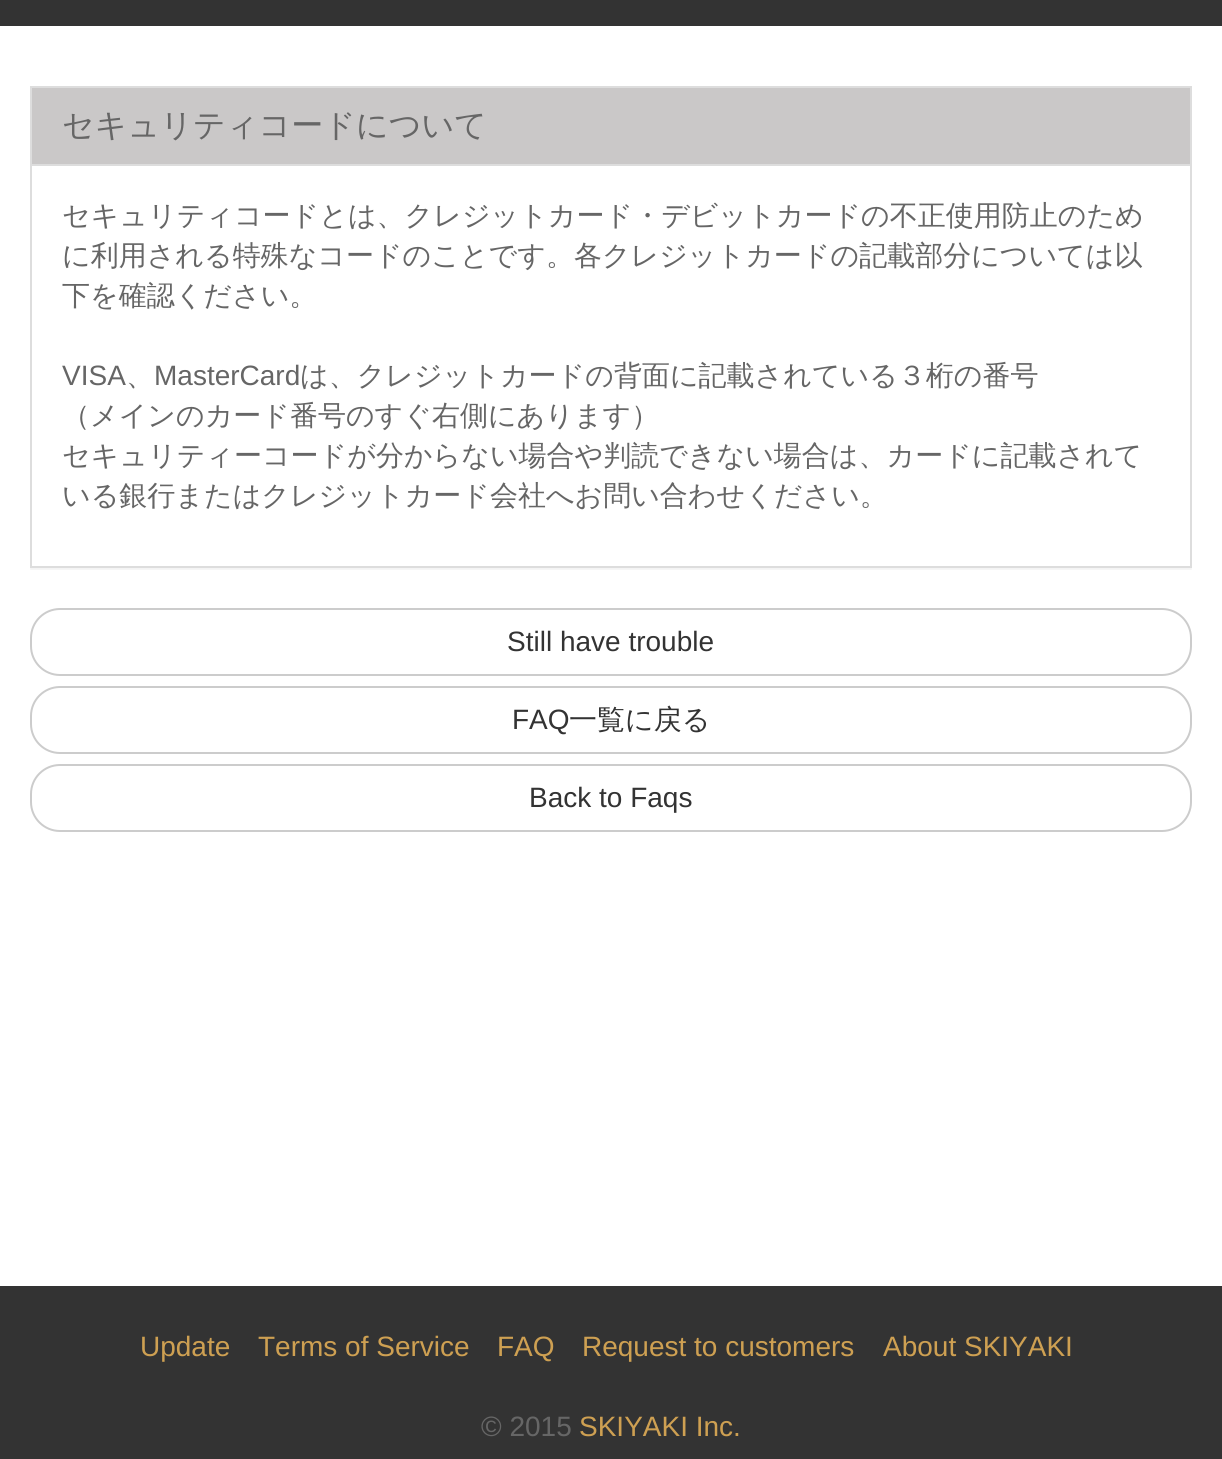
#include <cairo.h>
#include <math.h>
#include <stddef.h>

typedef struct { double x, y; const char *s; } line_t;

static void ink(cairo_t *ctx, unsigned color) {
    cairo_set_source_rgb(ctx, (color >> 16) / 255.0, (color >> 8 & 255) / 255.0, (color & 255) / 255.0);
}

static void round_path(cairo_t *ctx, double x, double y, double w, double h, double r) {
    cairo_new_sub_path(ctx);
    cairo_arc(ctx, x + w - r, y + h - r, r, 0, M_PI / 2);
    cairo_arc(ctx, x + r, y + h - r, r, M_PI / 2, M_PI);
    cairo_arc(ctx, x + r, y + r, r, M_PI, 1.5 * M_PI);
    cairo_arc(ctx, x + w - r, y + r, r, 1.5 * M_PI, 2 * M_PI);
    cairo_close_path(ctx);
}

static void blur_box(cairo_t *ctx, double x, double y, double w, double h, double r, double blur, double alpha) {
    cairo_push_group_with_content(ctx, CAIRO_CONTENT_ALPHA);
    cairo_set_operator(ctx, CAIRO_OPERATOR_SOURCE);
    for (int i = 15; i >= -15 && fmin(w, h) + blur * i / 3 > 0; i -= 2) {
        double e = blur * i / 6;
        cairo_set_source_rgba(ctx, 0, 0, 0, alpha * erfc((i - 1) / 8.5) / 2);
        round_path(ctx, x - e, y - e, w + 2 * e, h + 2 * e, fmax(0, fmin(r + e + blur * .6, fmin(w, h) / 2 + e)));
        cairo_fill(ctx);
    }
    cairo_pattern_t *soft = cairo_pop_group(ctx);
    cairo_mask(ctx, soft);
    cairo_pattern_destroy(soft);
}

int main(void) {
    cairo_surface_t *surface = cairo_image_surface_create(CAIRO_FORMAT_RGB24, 1222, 1459);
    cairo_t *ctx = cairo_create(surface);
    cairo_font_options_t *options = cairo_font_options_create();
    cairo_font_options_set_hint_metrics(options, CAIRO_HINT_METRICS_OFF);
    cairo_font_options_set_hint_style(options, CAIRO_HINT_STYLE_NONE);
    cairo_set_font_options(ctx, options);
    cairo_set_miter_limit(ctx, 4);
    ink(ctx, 0xFFFFFF);
    cairo_paint(ctx);
    ink(ctx, 0x333333);
    cairo_rectangle(ctx, 0, 0, 1222, 26);
    cairo_fill(ctx);
    cairo_save(ctx);
    cairo_rectangle(ctx, 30, 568, 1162, 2);
    cairo_clip(ctx);
    ink(ctx, 0x000000);
    blur_box(ctx, 30, 88, 1162, 482, 0, 1, 0.05);
    cairo_restore(ctx);
    cairo_rectangle(ctx, 31, 87, 1160, 480);
    ink(ctx, 0xDDDDDD);
    cairo_stroke(ctx);
    ink(ctx, 0xCAC8C8);
    cairo_rectangle(ctx, 32, 88, 1158, 76);
    cairo_fill(ctx);
    ink(ctx, 0xDDDDDD);
    cairo_rectangle(ctx, 32, 164, 1158, 2);
    cairo_fill(ctx);
    cairo_select_font_face(ctx, "WenQuanYi Zen Hei Medium", CAIRO_FONT_SLANT_NORMAL, CAIRO_FONT_WEIGHT_NORMAL);
    cairo_set_font_size(ctx, 32);
    ink(ctx, 0x666666);
    cairo_move_to(ctx, 62, 136);
    cairo_show_text(ctx, "セキュリティコードについて");
    cairo_set_font_size(ctx, 28);
    {
        static const line_t items[] = {
            {62, 225, "セキュリティコードとは、クレジットカード・デビットカードの不正使用防止のため"},
            {62, 265, "に利用される特殊なコードのことです。各クレジットカードの記載部分については以"},
            {62, 305, "下を確認ください。"},
        };
        for (size_t i = 0; i < sizeof items / sizeof *items; i++) {
            cairo_move_to(ctx, items[i].x, items[i].y);
            cairo_show_text(ctx, items[i].s);
        }
    }
    cairo_select_font_face(ctx, "Liberation Sans", CAIRO_FONT_SLANT_NORMAL, CAIRO_FONT_WEIGHT_NORMAL);
    cairo_move_to(ctx, 62, 385);
    cairo_show_text(ctx, "VISA");
    cairo_select_font_face(ctx, "WenQuanYi Zen Hei Medium", CAIRO_FONT_SLANT_NORMAL, CAIRO_FONT_WEIGHT_NORMAL);
    cairo_move_to(ctx, 126, 385);
    cairo_show_text(ctx, "、");
    cairo_select_font_face(ctx, "Liberation Sans", CAIRO_FONT_SLANT_NORMAL, CAIRO_FONT_WEIGHT_NORMAL);
    cairo_move_to(ctx, 154, 385);
    cairo_show_text(ctx, "MasterCard");
    cairo_select_font_face(ctx, "WenQuanYi Zen Hei Medium", CAIRO_FONT_SLANT_NORMAL, CAIRO_FONT_WEIGHT_NORMAL);
    {
        static const line_t items[] = {
            {300, 385, "は、クレジットカードの背面に記載されている３桁の番号"},
            {62, 425, "（メインのカード番号のすぐ右側にあります）"},
            {62, 465, "セキュリティーコードが分からない場合や判読できない場合は、カードに記載されて"},
            {62, 505, "いる銀行またはクレジットカード会社へお問い合わせください。"},
        };
        for (size_t i = 0; i < sizeof items / sizeof *items; i++) {
            cairo_move_to(ctx, items[i].x, items[i].y);
            cairo_show_text(ctx, items[i].s);
        }
    }
    round_path(ctx, 31, 609, 1160, 66, 29);
    ink(ctx, 0xCCCCCC);
    cairo_stroke(ctx);
    cairo_select_font_face(ctx, "Liberation Sans", CAIRO_FONT_SLANT_NORMAL, CAIRO_FONT_WEIGHT_NORMAL);
    ink(ctx, 0x333333);
    cairo_move_to(ctx, 507, 651);
    cairo_show_text(ctx, "Still have trouble");
    round_path(ctx, 31, 687, 1160, 66, 29);
    ink(ctx, 0xCCCCCC);
    cairo_stroke(ctx);
    ink(ctx, 0x333333);
    cairo_move_to(ctx, 512, 729);
    cairo_show_text(ctx, "FAQ");
    cairo_select_font_face(ctx, "WenQuanYi Zen Hei Medium", CAIRO_FONT_SLANT_NORMAL, CAIRO_FONT_WEIGHT_NORMAL);
    cairo_move_to(ctx, 569, 729);
    cairo_show_text(ctx, "一覧に戻る");
    round_path(ctx, 31, 765, 1160, 66, 29);
    ink(ctx, 0xCCCCCC);
    cairo_stroke(ctx);
    cairo_select_font_face(ctx, "Liberation Sans", CAIRO_FONT_SLANT_NORMAL, CAIRO_FONT_WEIGHT_NORMAL);
    ink(ctx, 0x333333);
    cairo_move_to(ctx, 529, 807);
    cairo_show_text(ctx, "Back to Faqs");
    cairo_rectangle(ctx, 0, 1286, 1222, 173);
    cairo_fill(ctx);
    ink(ctx, 0xCEA052);
    {
        static const line_t items[] = {
            {140, 1356, "Update"},
            {258, 1356, "Terms of Service"},
            {497, 1356, "FAQ"},
            {582, 1356, "Request to customers"},
            {883, 1356, "About SKIYAKI"},
        };
        for (size_t i = 0; i < sizeof items / sizeof *items; i++) {
            cairo_move_to(ctx, items[i].x, items[i].y);
            cairo_show_text(ctx, items[i].s);
        }
    }
    ink(ctx, 0x666666);
    cairo_move_to(ctx, 481, 1436);
    cairo_show_text(ctx, "© 2015");
    ink(ctx, 0xCEA052);
    cairo_move_to(ctx, 579, 1436);
    cairo_show_text(ctx, "SKIYAKI Inc.");
    cairo_surface_write_to_png(surface, "image.png");
    cairo_font_options_destroy(options);
    cairo_destroy(ctx);
    cairo_surface_destroy(surface);
    return 0;
}
